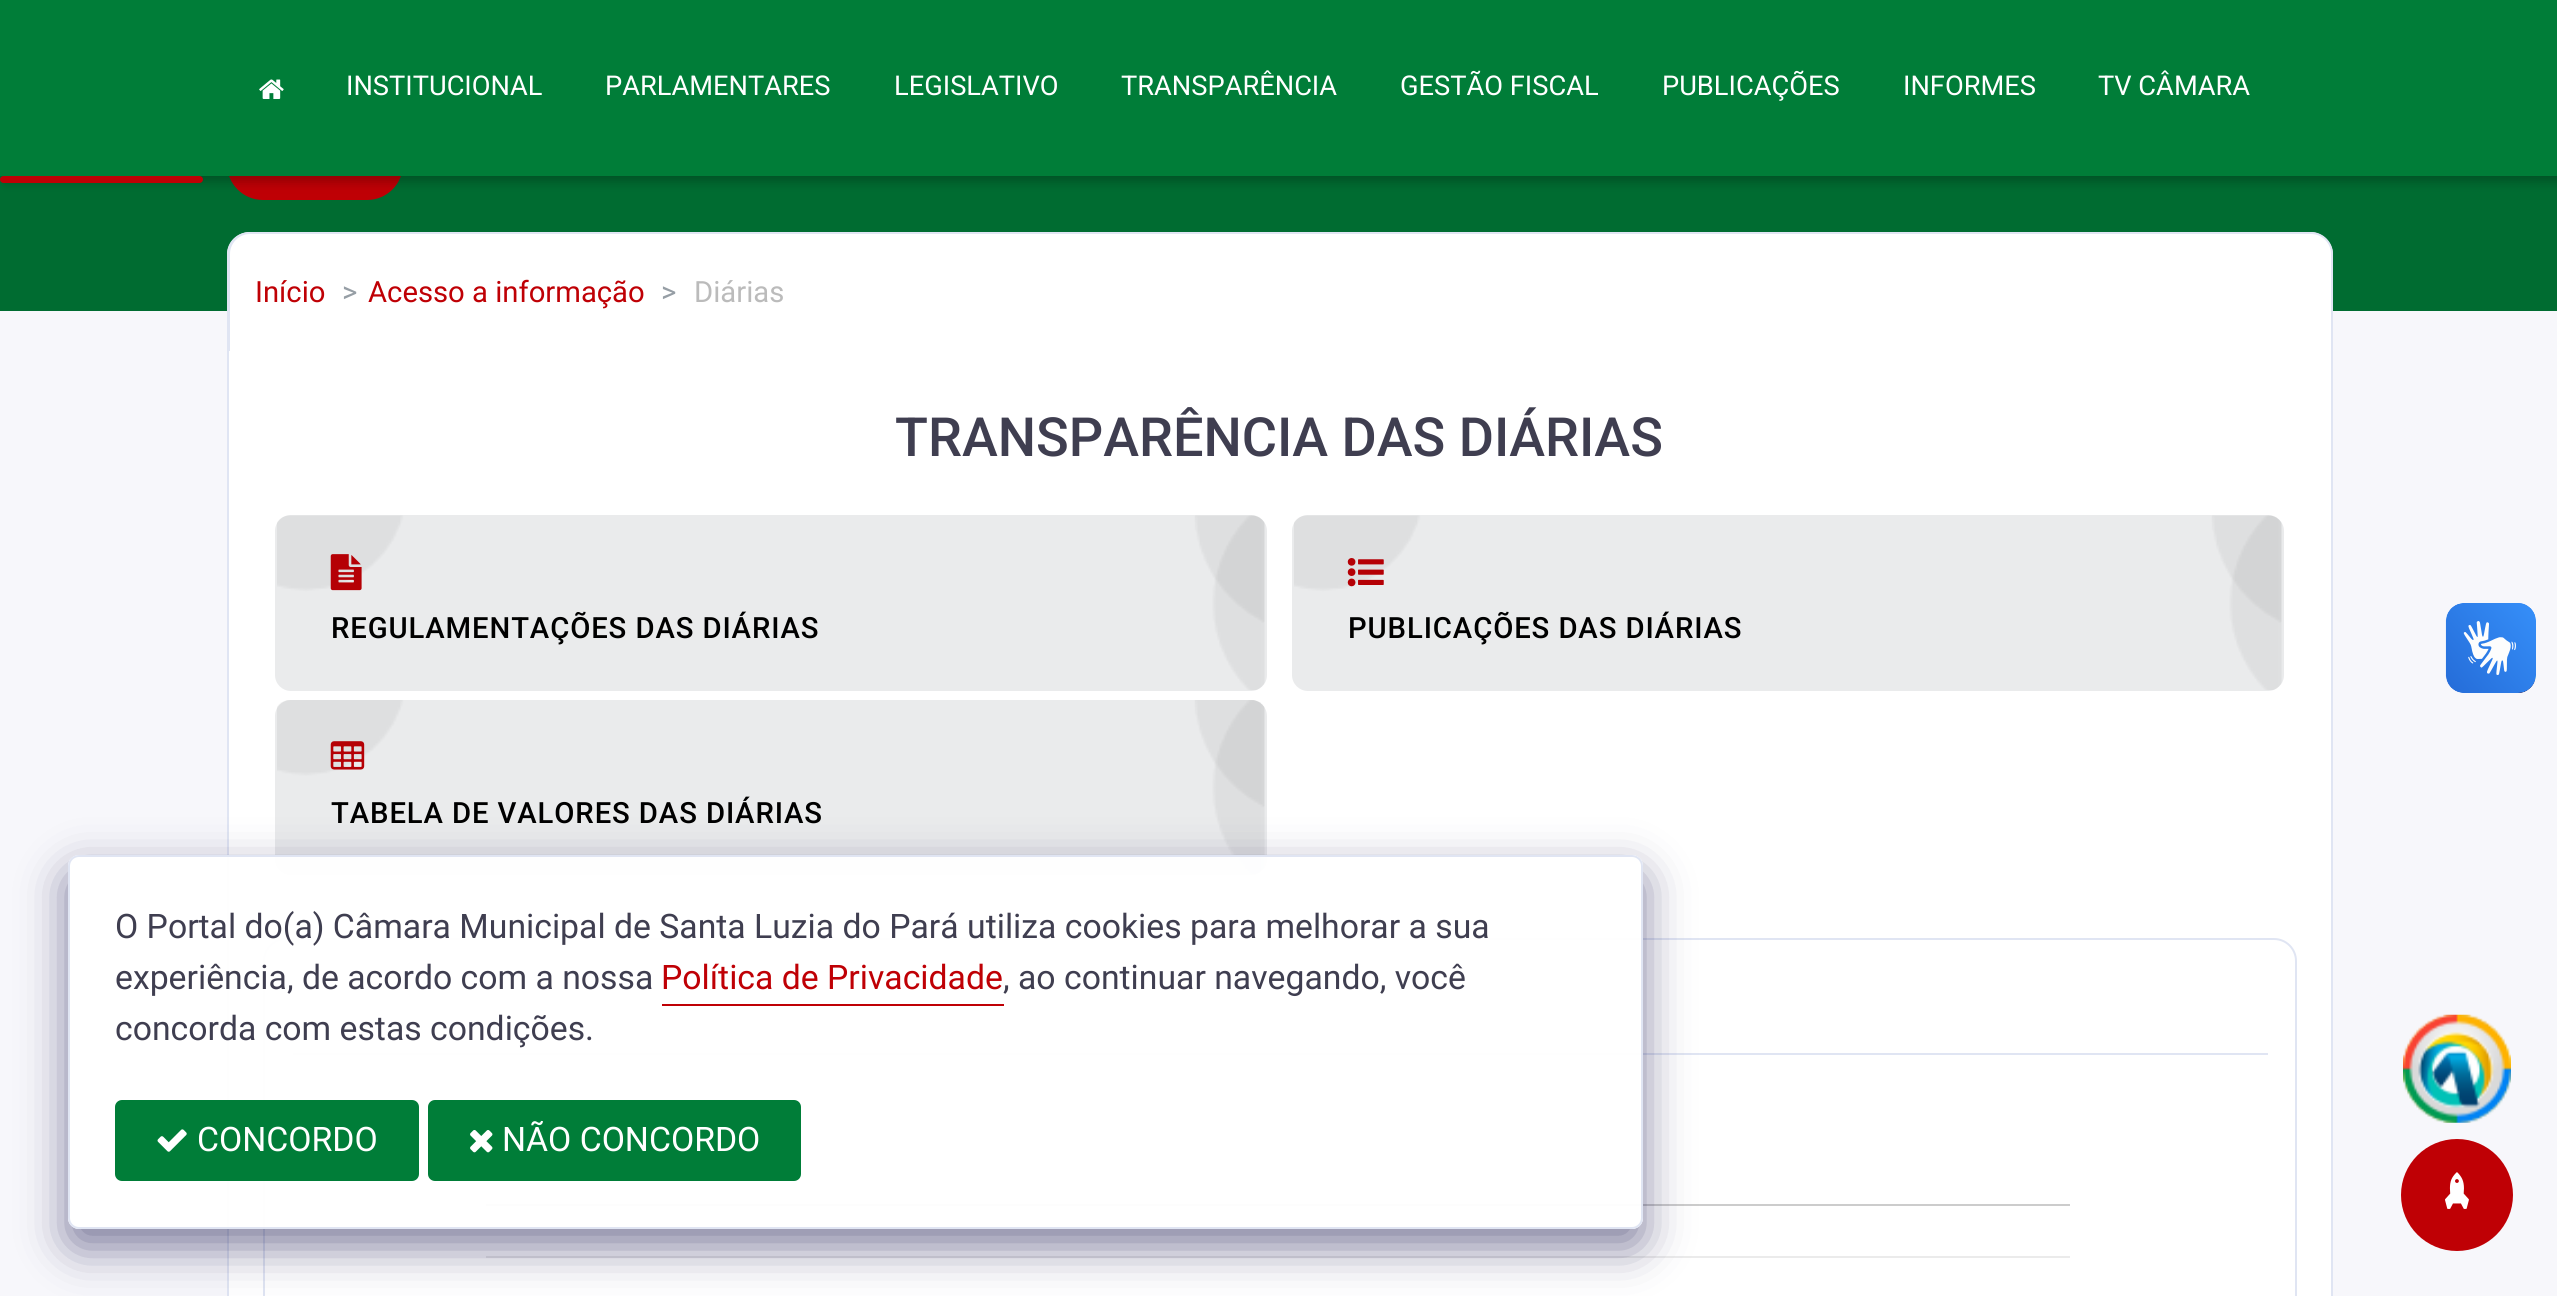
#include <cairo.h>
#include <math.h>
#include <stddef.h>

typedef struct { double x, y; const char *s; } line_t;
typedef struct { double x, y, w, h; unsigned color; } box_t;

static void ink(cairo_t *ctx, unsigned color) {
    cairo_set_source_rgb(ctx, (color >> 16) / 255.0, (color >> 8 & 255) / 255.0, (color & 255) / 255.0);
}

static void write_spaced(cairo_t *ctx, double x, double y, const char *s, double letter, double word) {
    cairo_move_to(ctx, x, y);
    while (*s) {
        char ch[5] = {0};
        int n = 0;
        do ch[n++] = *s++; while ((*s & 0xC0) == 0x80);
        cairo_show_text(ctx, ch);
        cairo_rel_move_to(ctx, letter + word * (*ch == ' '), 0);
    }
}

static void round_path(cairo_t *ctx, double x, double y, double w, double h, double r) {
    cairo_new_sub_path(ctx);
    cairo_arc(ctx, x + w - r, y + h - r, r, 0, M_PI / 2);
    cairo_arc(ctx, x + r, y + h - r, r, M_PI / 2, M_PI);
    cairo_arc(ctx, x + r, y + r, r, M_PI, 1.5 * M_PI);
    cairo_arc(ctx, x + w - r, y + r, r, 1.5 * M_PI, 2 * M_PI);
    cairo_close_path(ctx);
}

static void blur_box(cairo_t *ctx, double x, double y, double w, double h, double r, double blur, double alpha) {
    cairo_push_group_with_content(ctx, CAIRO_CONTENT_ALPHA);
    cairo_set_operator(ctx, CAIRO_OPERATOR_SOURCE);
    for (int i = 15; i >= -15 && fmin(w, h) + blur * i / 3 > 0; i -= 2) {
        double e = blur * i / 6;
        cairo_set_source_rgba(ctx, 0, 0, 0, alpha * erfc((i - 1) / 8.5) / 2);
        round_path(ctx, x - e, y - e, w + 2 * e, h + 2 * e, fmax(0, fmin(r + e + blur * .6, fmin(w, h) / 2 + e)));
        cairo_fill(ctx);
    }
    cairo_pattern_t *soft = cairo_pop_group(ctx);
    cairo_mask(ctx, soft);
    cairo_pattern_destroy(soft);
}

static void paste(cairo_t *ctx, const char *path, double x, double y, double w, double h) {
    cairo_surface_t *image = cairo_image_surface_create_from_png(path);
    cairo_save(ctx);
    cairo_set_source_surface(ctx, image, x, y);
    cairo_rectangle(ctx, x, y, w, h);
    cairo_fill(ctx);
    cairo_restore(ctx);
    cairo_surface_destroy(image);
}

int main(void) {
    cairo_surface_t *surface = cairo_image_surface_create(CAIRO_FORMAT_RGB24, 2557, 1296);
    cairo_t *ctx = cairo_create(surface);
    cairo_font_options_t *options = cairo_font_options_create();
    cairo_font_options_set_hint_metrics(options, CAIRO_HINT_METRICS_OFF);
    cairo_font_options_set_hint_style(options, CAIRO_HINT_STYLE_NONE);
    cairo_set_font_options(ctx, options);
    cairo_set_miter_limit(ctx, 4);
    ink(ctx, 0xF7F7FB);
    cairo_paint(ctx);
    ink(ctx, 0x006C31);
    cairo_rectangle(ctx, 0, 176, 2557, 135);
    cairo_fill(ctx);
    ink(ctx, 0xBF0005);
    round_path(ctx, 227, 128, 176, 72, 36);
    cairo_fill(ctx);
    ink(ctx, 0x000000);
    blur_box(ctx, 5, 7, 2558, 175, 0, 5.5, 0.24);
    ink(ctx, 0x007D38);
    cairo_rectangle(ctx, 0, 0, 2557, 176);
    cairo_fill(ctx);
    paste(ctx, "media/1.png", 259, 79, 25, 20);
    cairo_select_font_face(ctx, "Roboto", CAIRO_FONT_SLANT_NORMAL, CAIRO_FONT_WEIGHT_NORMAL);
    cairo_set_font_size(ctx, 27.25);
    ink(ctx, 0xFFFFFF);
    {
        static const line_t items[] = {
            {346, 95, "INSTITUCIONAL"},
            {605, 95, "PARLAMENTARES"},
            {894, 95, "LEGISLATIVO"},
            {1121, 95, "TRANSPARÊNCIA"},
            {1400, 95, "GESTÃO FISCAL"},
            {1662, 95, "PUBLICAÇÕES"},
            {1903, 95, "INFORMES"},
            {2098, 95, "TV CÂMARA"},
        };
        for (size_t i = 0; i < sizeof items / sizeof *items; i++) {
            cairo_move_to(ctx, items[i].x, items[i].y);
            cairo_show_text(ctx, items[i].s);
        }
    }
    ink(ctx, 0xBF0005);
    round_path(ctx, 0, 176, 203, 7, 3.5);
    cairo_fill(ctx);
    ink(ctx, 0xFFFFFF);
    cairo_rectangle(ctx, 227, 351, 2106, 945);
    cairo_fill(ctx);
    cairo_rectangle(ctx, 228, 330, 2104, 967);
    ink(ctx, 0xE0E5F3);
    cairo_stroke(ctx);
    ink(ctx, 0xFFFFFF);
    cairo_new_path(ctx);
    cairo_move_to(ctx, 250, 232);
    cairo_line_to(ctx, 2310, 232);
    cairo_curve_to(ctx, 2322.5, 232, 2333, 242.5, 2333, 255);
    cairo_line_to(ctx, 2333, 351);
    cairo_line_to(ctx, 227, 351);
    cairo_line_to(ctx, 227, 255);
    cairo_curve_to(ctx, 227, 242.5, 237.5, 232, 250, 232);
    cairo_close_path(ctx);
    cairo_fill(ctx);
    ink(ctx, 0xE0E5F3);
    cairo_set_fill_rule(ctx, CAIRO_FILL_RULE_EVEN_ODD);
    cairo_new_path(ctx);
    cairo_move_to(ctx, 250, 232);
    cairo_line_to(ctx, 2311, 232);
    cairo_curve_to(ctx, 2323, 232, 2333, 242, 2333, 254);
    cairo_line_to(ctx, 2333, 351);
    cairo_line_to(ctx, 227, 351);
    cairo_line_to(ctx, 227, 254);
    cairo_curve_to(ctx, 227, 242, 237, 232, 250, 232);
    cairo_close_path(ctx);
    cairo_move_to(ctx, 250, 234);
    cairo_line_to(ctx, 2311, 234);
    cairo_curve_to(ctx, 2322, 234, 2331, 243, 2331, 254);
    cairo_line_to(ctx, 2331, 351);
    cairo_line_to(ctx, 230, 351);
    cairo_line_to(ctx, 230, 254);
    cairo_curve_to(ctx, 230, 243, 239, 234, 250, 234);
    cairo_close_path(ctx);
    cairo_fill(ctx);
    cairo_set_font_size(ctx, 29.25);
    ink(ctx, 0xBF0005);
    cairo_move_to(ctx, 255, 302);
    cairo_show_text(ctx, "Início");
    ink(ctx, 0x969EA5);
    cairo_move_to(ctx, 342, 302);
    cairo_show_text(ctx, ">");
    ink(ctx, 0xBF0005);
    cairo_move_to(ctx, 368, 302);
    cairo_show_text(ctx, "Acesso a informação");
    ink(ctx, 0x969EA5);
    cairo_move_to(ctx, 661, 302);
    cairo_show_text(ctx, ">");
    ink(ctx, 0xBBBBBB);
    cairo_move_to(ctx, 694, 302);
    cairo_show_text(ctx, "Diárias");
    cairo_select_font_face(ctx, "Roboto Medium", CAIRO_FONT_SLANT_NORMAL, CAIRO_FONT_WEIGHT_NORMAL);
    cairo_set_font_size(ctx, 54);
    ink(ctx, 0x3F3E50);
    cairo_move_to(ctx, 895, 456);
    cairo_show_text(ctx, "TRANSPARÊNCIA DAS DIÁRIAS");
    ink(ctx, 0xEAEBEC);
    round_path(ctx, 275, 515, 992, 176, 16);
    cairo_fill(ctx);
    paste(ctx, "media/2.png", 277, 515, 988, 175);
    paste(ctx, "media/3.png", 330, 554, 32, 37);
    cairo_set_font_size(ctx, 29.25);
    ink(ctx, 0x000000);
    write_spaced(ctx, 331, 638, "REGULAMENTAÇÕES DAS DIÁRIAS", 0.9, 0);
    ink(ctx, 0xEAEBEC);
    round_path(ctx, 1292, 515, 992, 176, 16);
    cairo_fill(ctx);
    paste(ctx, "media/4.png", 1294, 515, 988, 175);
    paste(ctx, "media/5.png", 1347, 558, 37, 29);
    ink(ctx, 0x000000);
    write_spaced(ctx, 1348, 638, "PUBLICAÇÕES DAS DIÁRIAS", 0.9, 0);
    ink(ctx, 0xEAEBEC);
    round_path(ctx, 275, 700, 992, 175, 16);
    cairo_fill(ctx);
    paste(ctx, "media/6.png", 277, 700, 988, 175);
    paste(ctx, "media/7.png", 330, 741, 35, 29);
    ink(ctx, 0x000000);
    write_spaced(ctx, 331, 823, "TABELA DE VALORES DAS DIÁRIAS", 0.9, 0);
    round_path(ctx, 264, 939, 2032, 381, 22);
    ink(ctx, 0xE0E5F3);
    cairo_stroke(ctx);
    {
        static const box_t items[] = {
            {293, 1053, 1975, 2, 0xE0E5F3},
            {486, 1204, 1584, 2, 0xCCCCCC},
            {486, 1256, 1584, 2, 0xEBEBEB},
        };
        for (size_t i = 0; i < sizeof items / sizeof *items; i++) {
            ink(ctx, items[i].color);
            cairo_rectangle(ctx, items[i].x, items[i].y, items[i].w, items[i].h);
            cairo_fill(ctx);
        }
    }
    paste(ctx, "media/8.png", 2445, 603, 91, 90);
    paste(ctx, "media/9.png", 2446, 603, 90, 90);
    cairo_save(ctx);
    cairo_new_path(ctx);
    cairo_move_to(ctx, 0, 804);
    cairo_line_to(ctx, 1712, 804);
    cairo_line_to(ctx, 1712, 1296);
    cairo_line_to(ctx, 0, 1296);
    cairo_close_path(ctx);
    cairo_move_to(ctx, 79, 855);
    cairo_line_to(ctx, 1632, 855);
    cairo_curve_to(ctx, 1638, 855, 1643, 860, 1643, 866);
    cairo_line_to(ctx, 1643, 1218);
    cairo_curve_to(ctx, 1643, 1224, 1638, 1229, 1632, 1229);
    cairo_line_to(ctx, 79, 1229);
    cairo_curve_to(ctx, 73, 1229, 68, 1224, 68, 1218);
    cairo_line_to(ctx, 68, 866);
    cairo_curve_to(ctx, 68, 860, 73, 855, 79, 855);
    cairo_close_path(ctx);
    cairo_clip(ctx);
    ink(ctx, 0x282559);
    blur_box(ctx, 68, 873, 1575, 374, 11, 22.5, 0.6);
    cairo_restore(ctx);
    cairo_set_source_rgba(ctx, 1, 1, 1, 0.95);
    round_path(ctx, 69, 856, 1573, 372, 10);
    cairo_fill_preserve(ctx);
    ink(ctx, 0xE0E5F3);
    cairo_stroke(ctx);
    cairo_select_font_face(ctx, "Roboto", CAIRO_FONT_SLANT_NORMAL, CAIRO_FONT_WEIGHT_NORMAL);
    cairo_set_font_size(ctx, 33.75);
    ink(ctx, 0x3F3E50);
    cairo_move_to(ctx, 115, 938);
    cairo_show_text(ctx, "O Portal do(a) Câmara Municipal de Santa Luzia do Pará utiliza cookies para melhorar a sua");
    cairo_move_to(ctx, 115, 989);
    cairo_show_text(ctx, "experiência, de acordo com a nossa");
    ink(ctx, 0xBF0005);
    cairo_move_to(ctx, 661, 989);
    cairo_show_text(ctx, "Política de Privacidade");
    cairo_rectangle(ctx, 662, 1004, 342, 2);
    cairo_fill(ctx);
    ink(ctx, 0x3F3E50);
    cairo_move_to(ctx, 1003, 989);
    cairo_show_text(ctx, ", ao continuar navegando, você");
    cairo_move_to(ctx, 115, 1040);
    cairo_show_text(ctx, "concorda com estas condições.");
    ink(ctx, 0x007D38);
    round_path(ctx, 115, 1100, 304, 81, 7);
    cairo_fill(ctx);
    paste(ctx, "media/10.png", 157, 1129, 30, 23);
    ink(ctx, 0xFFFFFF);
    cairo_move_to(ctx, 197, 1151);
    cairo_show_text(ctx, "CONCORDO");
    ink(ctx, 0x007D38);
    round_path(ctx, 428, 1100, 373, 81, 7);
    cairo_fill(ctx);
    paste(ctx, "media/11.png", 470, 1130, 23, 23);
    ink(ctx, 0xFFFFFF);
    cairo_move_to(ctx, 502, 1151);
    cairo_show_text(ctx, "NÃO CONCORDO");
    paste(ctx, "media/12.png", 2403, 1014, 108, 109);
    ink(ctx, 0xBF0005);
    cairo_arc(ctx, 2457, 1195, 56, 0, 2 * M_PI);
    cairo_fill(ctx);
    paste(ctx, "media/13.png", 2445, 1172, 24, 37);
    cairo_surface_write_to_png(surface, "image.png");
    cairo_font_options_destroy(options);
    cairo_destroy(ctx);
    cairo_surface_destroy(surface);
    return 0;
}
